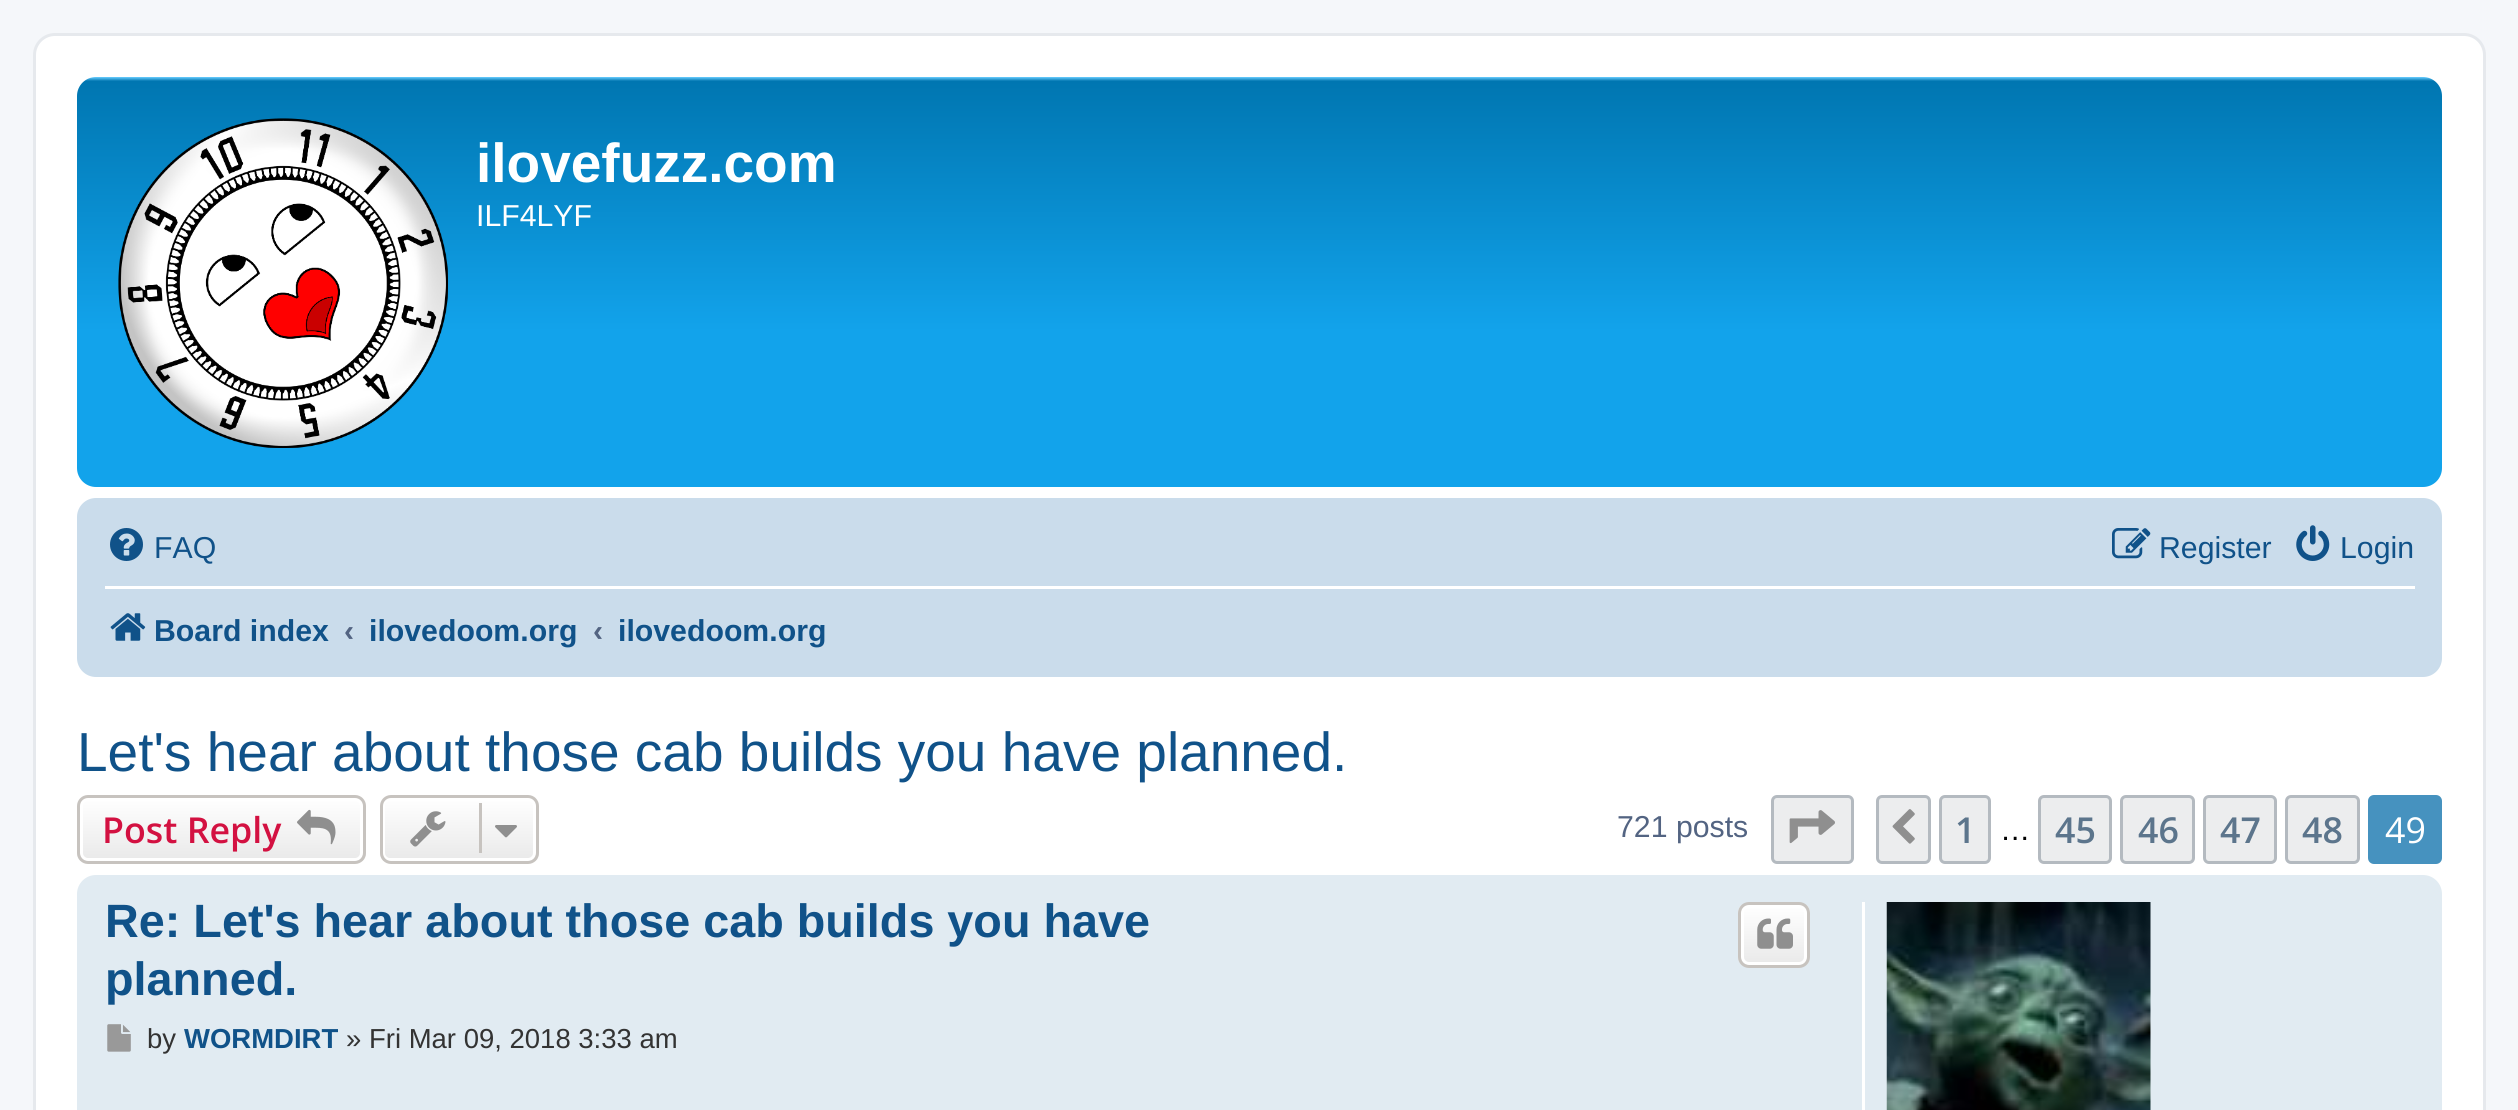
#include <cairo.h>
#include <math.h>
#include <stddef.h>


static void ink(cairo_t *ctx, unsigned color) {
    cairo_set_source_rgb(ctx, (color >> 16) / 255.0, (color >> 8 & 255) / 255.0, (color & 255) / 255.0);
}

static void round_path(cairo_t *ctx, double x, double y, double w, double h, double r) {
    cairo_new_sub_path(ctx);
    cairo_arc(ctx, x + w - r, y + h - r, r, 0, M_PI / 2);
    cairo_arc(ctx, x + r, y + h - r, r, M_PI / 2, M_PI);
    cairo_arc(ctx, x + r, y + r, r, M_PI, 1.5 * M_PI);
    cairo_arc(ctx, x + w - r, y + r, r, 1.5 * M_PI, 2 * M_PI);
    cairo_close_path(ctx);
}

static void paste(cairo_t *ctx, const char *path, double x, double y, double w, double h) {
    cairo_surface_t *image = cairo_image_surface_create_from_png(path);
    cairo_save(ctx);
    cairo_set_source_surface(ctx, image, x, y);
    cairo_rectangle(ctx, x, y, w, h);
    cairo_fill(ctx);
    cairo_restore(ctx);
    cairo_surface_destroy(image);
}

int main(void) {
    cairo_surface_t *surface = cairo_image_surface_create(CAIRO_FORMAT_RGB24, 2518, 1110);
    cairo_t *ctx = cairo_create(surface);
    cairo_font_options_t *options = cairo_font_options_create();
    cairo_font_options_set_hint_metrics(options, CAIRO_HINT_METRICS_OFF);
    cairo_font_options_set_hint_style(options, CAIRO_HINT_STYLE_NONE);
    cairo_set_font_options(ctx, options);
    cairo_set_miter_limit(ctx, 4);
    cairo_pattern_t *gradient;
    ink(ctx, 0xF5F7FA);
    cairo_paint(ctx);
    ink(ctx, 0xFFFFFF);
    round_path(ctx, 34.5, 34.5, 2450, 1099, 20.5);
    cairo_fill_preserve(ctx);
    ink(ctx, 0xE6E9ED);
    cairo_set_line_width(ctx, 3);
    cairo_stroke(ctx);
    gradient = cairo_pattern_create_linear(1260, 77, 1260, 487);
    cairo_pattern_add_color_stop_rgba(gradient, 0, 0.416, 0.808, 1, 1);
    cairo_pattern_add_color_stop_rgba(gradient, 0.01, 0, 0.463, 0.694, 1);
    cairo_pattern_add_color_stop_rgba(gradient, 0.62, 0.071, 0.639, 0.922, 1);
    cairo_pattern_add_color_stop_rgba(gradient, 1, 0.071, 0.639, 0.922, 1);
    cairo_set_source(ctx, gradient);
    cairo_pattern_destroy(gradient);
    round_path(ctx, 77, 77, 2365, 410, 19);
    cairo_fill(ctx);
    paste(ctx, "media/1.png", 118, 118, 330, 330);
    cairo_select_font_face(ctx, "Liberation Sans", CAIRO_FONT_SLANT_NORMAL, CAIRO_FONT_WEIGHT_BOLD);
    cairo_set_font_size(ctx, 55);
    ink(ctx, 0xFFFFFF);
    cairo_move_to(ctx, 476, 182);
    cairo_show_text(ctx, "ilovefuzz.com");
    cairo_select_font_face(ctx, "Liberation Sans", CAIRO_FONT_SLANT_NORMAL, CAIRO_FONT_WEIGHT_NORMAL);
    cairo_set_font_size(ctx, 30.25);
    cairo_move_to(ctx, 476, 226);
    cairo_show_text(ctx, "ILF4LYF");
    ink(ctx, 0xCADCEB);
    round_path(ctx, 77, 498, 2365, 179, 19);
    cairo_fill(ctx);
    paste(ctx, "media/2.png", 110, 528, 33, 33);
    ink(ctx, 0x105289);
    cairo_move_to(ctx, 154, 558);
    cairo_show_text(ctx, "FAQ");
    paste(ctx, "media/3.png", 2112, 528, 39, 31);
    cairo_move_to(ctx, 2159, 558);
    cairo_show_text(ctx, "Register");
    paste(ctx, "media/4.png", 2296, 525, 34, 36);
    cairo_move_to(ctx, 2340, 558);
    cairo_show_text(ctx, "Login");
    ink(ctx, 0xFFFFFF);
    cairo_rectangle(ctx, 105, 586, 2310, 3);
    cairo_fill(ctx);
    paste(ctx, "media/5.png", 110, 613, 36, 28);
    cairo_select_font_face(ctx, "Liberation Sans", CAIRO_FONT_SLANT_NORMAL, CAIRO_FONT_WEIGHT_BOLD);
    ink(ctx, 0x105289);
    cairo_move_to(ctx, 154, 641);
    cairo_show_text(ctx, "Board index");
    ink(ctx, 0x536482);
    cairo_move_to(ctx, 344, 641);
    cairo_show_text(ctx, "‹");
    ink(ctx, 0x105289);
    cairo_move_to(ctx, 369, 641);
    cairo_show_text(ctx, "ilovedoom.org");
    ink(ctx, 0x536482);
    cairo_move_to(ctx, 593, 641);
    cairo_show_text(ctx, "‹");
    ink(ctx, 0x105289);
    cairo_move_to(ctx, 618, 641);
    cairo_show_text(ctx, "ilovedoom.org");
    cairo_select_font_face(ctx, "Liberation Sans", CAIRO_FONT_SLANT_NORMAL, CAIRO_FONT_WEIGHT_NORMAL);
    cairo_set_font_size(ctx, 55);
    cairo_move_to(ctx, 77, 771);
    cairo_show_text(ctx, "Let's hear about those cab builds you have planned.");
    cairo_save(ctx);
    round_path(ctx, 77, 795, 289, 69, 11);
    cairo_clip(ctx);
    gradient = cairo_pattern_create_linear(221, 798, 221, 861);
    cairo_pattern_add_color_stop_rgba(gradient, 0, 1, 1, 1, 1);
    cairo_pattern_add_color_stop_rgba(gradient, 1, 0.914, 0.914, 0.914, 1);
    cairo_set_source(ctx, gradient);
    cairo_pattern_destroy(gradient);
    cairo_rectangle(ctx, 77, 798, 289, 63);
    cairo_fill(ctx);
    cairo_restore(ctx);
    round_path(ctx, 81.5, 799.5, 280, 60, 6.5);
    ink(ctx, 0xFFFFFF);
    cairo_stroke(ctx);
    round_path(ctx, 78.5, 796.5, 286, 66, 9.5);
    ink(ctx, 0xC7C3BF);
    cairo_stroke(ctx);
    cairo_select_font_face(ctx, "Open Sans SemiBold", CAIRO_FONT_SLANT_NORMAL, CAIRO_FONT_WEIGHT_NORMAL);
    cairo_set_font_size(ctx, 35.75);
    ink(ctx, 0xD31141);
    cairo_move_to(ctx, 102, 843);
    cairo_show_text(ctx, "Post Reply");
    paste(ctx, "media/6.png", 297, 809, 39, 36);
    cairo_save(ctx);
    round_path(ctx, 380, 795, 159, 69, 11);
    cairo_clip(ctx);
    gradient = cairo_pattern_create_linear(459, 798, 459, 861);
    cairo_pattern_add_color_stop_rgba(gradient, 0, 1, 1, 1, 1);
    cairo_pattern_add_color_stop_rgba(gradient, 1, 0.914, 0.914, 0.914, 1);
    cairo_set_source(ctx, gradient);
    cairo_pattern_destroy(gradient);
    cairo_rectangle(ctx, 380, 798, 159, 63);
    cairo_fill(ctx);
    cairo_restore(ctx);
    round_path(ctx, 383.5, 799.5, 151, 60, 6.5);
    ink(ctx, 0xFFFFFF);
    cairo_stroke(ctx);
    round_path(ctx, 381.5, 796.5, 156, 66, 9.5);
    ink(ctx, 0xC7C3BF);
    cairo_stroke(ctx);
    paste(ctx, "media/7.png", 410, 811, 36, 36);
    cairo_rectangle(ctx, 479, 803, 3, 50);
    cairo_fill(ctx);
    paste(ctx, "media/8.png", 495, 825, 22, 13);
    cairo_select_font_face(ctx, "Liberation Sans", CAIRO_FONT_SLANT_NORMAL, CAIRO_FONT_WEIGHT_NORMAL);
    cairo_set_font_size(ctx, 30.25);
    ink(ctx, 0x536482);
    cairo_move_to(ctx, 1617, 837);
    cairo_show_text(ctx, "721 posts");
    ink(ctx, 0xECEDEE);
    round_path(ctx, 1772.5, 796.5, 80, 66, 4.5);
    cairo_fill_preserve(ctx);
    ink(ctx, 0xB4BAC0);
    cairo_stroke(ctx);
    paste(ctx, "media/9.png", 1789, 810, 46, 34);
    ink(ctx, 0xECEDEE);
    round_path(ctx, 1877.5, 796.5, 52, 66, 4.5);
    cairo_fill_preserve(ctx);
    ink(ctx, 0xB4BAC0);
    cairo_stroke(ctx);
    paste(ctx, "media/10.png", 1892, 809, 23, 35);
    ink(ctx, 0xECEDEE);
    round_path(ctx, 1940.5, 796.5, 49, 66, 4.5);
    cairo_fill_preserve(ctx);
    ink(ctx, 0xB4BAC0);
    cairo_stroke(ctx);
    cairo_select_font_face(ctx, "Open Sans SemiBold", CAIRO_FONT_SLANT_NORMAL, CAIRO_FONT_WEIGHT_NORMAL);
    cairo_set_font_size(ctx, 35.75);
    ink(ctx, 0x5C758C);
    cairo_move_to(ctx, 1955, 843);
    cairo_show_text(ctx, "1");
    cairo_select_font_face(ctx, "Liberation Sans", CAIRO_FONT_SLANT_NORMAL, CAIRO_FONT_WEIGHT_NORMAL);
    cairo_set_font_size(ctx, 30.25);
    ink(ctx, 0x000000);
    cairo_move_to(ctx, 2000, 840);
    cairo_show_text(ctx, "…");
    ink(ctx, 0xECEDEE);
    round_path(ctx, 2039.5, 796.5, 71, 66, 4.5);
    cairo_fill_preserve(ctx);
    ink(ctx, 0xB4BAC0);
    cairo_stroke(ctx);
    cairo_select_font_face(ctx, "Open Sans SemiBold", CAIRO_FONT_SLANT_NORMAL, CAIRO_FONT_WEIGHT_NORMAL);
    cairo_set_font_size(ctx, 35.75);
    ink(ctx, 0x5C758C);
    cairo_move_to(ctx, 2055, 843);
    cairo_show_text(ctx, "45");
    ink(ctx, 0xECEDEE);
    round_path(ctx, 2121.5, 796.5, 72, 66, 4.5);
    cairo_fill_preserve(ctx);
    ink(ctx, 0xB4BAC0);
    cairo_stroke(ctx);
    ink(ctx, 0x5C758C);
    cairo_move_to(ctx, 2138, 843);
    cairo_show_text(ctx, "46");
    ink(ctx, 0xECEDEE);
    round_path(ctx, 2204.5, 796.5, 71, 66, 4.5);
    cairo_fill_preserve(ctx);
    ink(ctx, 0xB4BAC0);
    cairo_stroke(ctx);
    ink(ctx, 0x5C758C);
    cairo_move_to(ctx, 2220, 843);
    cairo_show_text(ctx, "47");
    ink(ctx, 0xECEDEE);
    round_path(ctx, 2286.5, 796.5, 72, 66, 4.5);
    cairo_fill_preserve(ctx);
    ink(ctx, 0xB4BAC0);
    cairo_stroke(ctx);
    ink(ctx, 0x5C758C);
    cairo_move_to(ctx, 2302, 843);
    cairo_show_text(ctx, "48");
    ink(ctx, 0x4692BF);
    round_path(ctx, 2369.5, 796.5, 71, 66, 4.5);
    cairo_fill_preserve(ctx);
    cairo_stroke(ctx);
    cairo_select_font_face(ctx, "Open Sans", CAIRO_FONT_SLANT_NORMAL, CAIRO_FONT_WEIGHT_NORMAL);
    ink(ctx, 0xFFFFFF);
    cairo_move_to(ctx, 2385, 843);
    cairo_show_text(ctx, "49");
    ink(ctx, 0xE1EBF2);
    round_path(ctx, 77, 875, 2365, 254, 19);
    cairo_fill(ctx);
    cairo_select_font_face(ctx, "Liberation Sans", CAIRO_FONT_SLANT_NORMAL, CAIRO_FONT_WEIGHT_BOLD);
    cairo_set_font_size(ctx, 46.75);
    ink(ctx, 0x105289);
    cairo_move_to(ctx, 105, 937);
    cairo_show_text(ctx, "Re: Let's hear about those cab builds you have");
    cairo_move_to(ctx, 105, 995);
    cairo_show_text(ctx, "planned.");
    cairo_save(ctx);
    round_path(ctx, 1738, 902, 72, 66, 11);
    cairo_clip(ctx);
    gradient = cairo_pattern_create_linear(1774, 905, 1774, 965);
    cairo_pattern_add_color_stop_rgba(gradient, 0, 1, 1, 1, 1);
    cairo_pattern_add_color_stop_rgba(gradient, 1, 0.914, 0.914, 0.914, 1);
    cairo_set_source(ctx, gradient);
    cairo_pattern_destroy(gradient);
    cairo_rectangle(ctx, 1738, 905, 72, 60);
    cairo_fill(ctx);
    cairo_restore(ctx);
    round_path(ctx, 1742.5, 906.5, 63, 57, 6.5);
    ink(ctx, 0xFFFFFF);
    cairo_stroke(ctx);
    round_path(ctx, 1739.5, 903.5, 69, 63, 9.5);
    ink(ctx, 0xC7C3BF);
    cairo_stroke(ctx);
    paste(ctx, "media/11.png", 1757, 918, 36, 31);
    paste(ctx, "media/12.png", 107, 1024, 24, 28);
    cairo_select_font_face(ctx, "Liberation Sans", CAIRO_FONT_SLANT_NORMAL, CAIRO_FONT_WEIGHT_NORMAL);
    cairo_set_font_size(ctx, 27.5);
    ink(ctx, 0x333333);
    cairo_move_to(ctx, 147, 1048);
    cairo_show_text(ctx, "by");
    cairo_select_font_face(ctx, "Liberation Sans", CAIRO_FONT_SLANT_NORMAL, CAIRO_FONT_WEIGHT_BOLD);
    ink(ctx, 0x105289);
    cairo_move_to(ctx, 184, 1048);
    cairo_show_text(ctx, "WORMDIRT");
    cairo_select_font_face(ctx, "Liberation Sans", CAIRO_FONT_SLANT_NORMAL, CAIRO_FONT_WEIGHT_NORMAL);
    ink(ctx, 0x333333);
    cairo_move_to(ctx, 346, 1048);
    cairo_show_text(ctx, "» Fri Mar 09, 2018 3:33 am");
    ink(ctx, 0xFFFFFF);
    cairo_rectangle(ctx, 1862, 902, 3, 208);
    cairo_fill(ctx);
    paste(ctx, "media/13.png", 1886, 902, 265, 208);
    cairo_surface_write_to_png(surface, "image.png");
    cairo_font_options_destroy(options);
    cairo_destroy(ctx);
    cairo_surface_destroy(surface);
    return 0;
}
